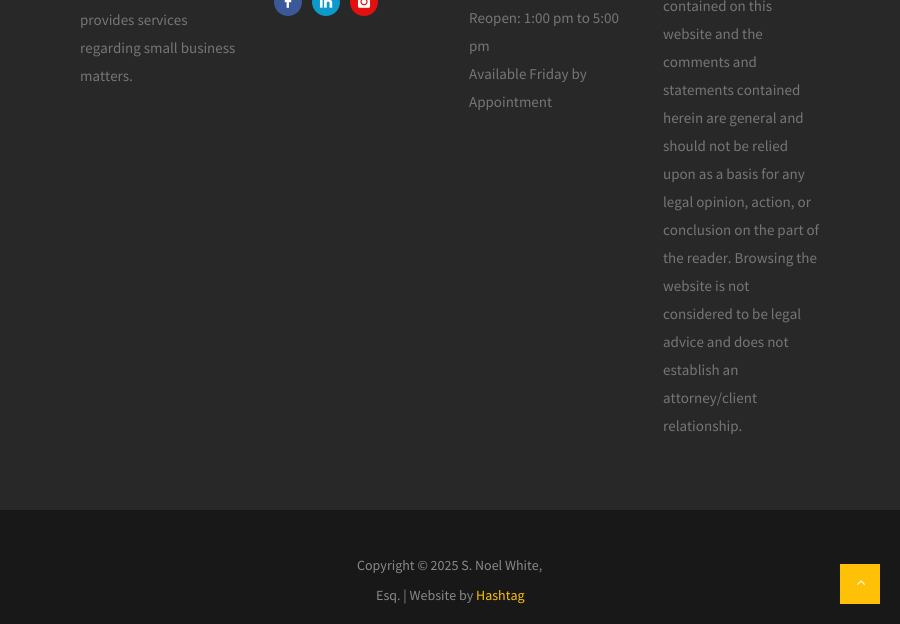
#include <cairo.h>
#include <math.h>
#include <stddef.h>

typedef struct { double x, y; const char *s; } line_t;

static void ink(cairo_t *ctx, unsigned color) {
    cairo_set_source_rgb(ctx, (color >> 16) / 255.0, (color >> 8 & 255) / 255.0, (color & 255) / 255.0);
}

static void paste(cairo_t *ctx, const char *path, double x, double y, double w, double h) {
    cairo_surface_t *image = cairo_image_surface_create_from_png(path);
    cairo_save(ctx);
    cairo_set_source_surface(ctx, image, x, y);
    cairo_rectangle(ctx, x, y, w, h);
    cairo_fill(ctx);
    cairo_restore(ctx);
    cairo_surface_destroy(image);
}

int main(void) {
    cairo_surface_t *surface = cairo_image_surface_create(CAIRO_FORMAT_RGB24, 900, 624);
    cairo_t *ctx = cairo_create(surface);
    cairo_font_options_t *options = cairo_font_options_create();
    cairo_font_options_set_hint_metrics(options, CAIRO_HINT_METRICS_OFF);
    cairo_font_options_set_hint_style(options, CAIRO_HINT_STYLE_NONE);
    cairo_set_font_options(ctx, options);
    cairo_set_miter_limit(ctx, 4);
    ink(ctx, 0x181818);
    cairo_paint(ctx);
    ink(ctx, 0x282828);
    cairo_rectangle(ctx, 0, 0, 900, 510);
    cairo_fill(ctx);
    cairo_select_font_face(ctx, "Source Sans Pro", CAIRO_FONT_SLANT_NORMAL, CAIRO_FONT_WEIGHT_NORMAL);
    cairo_set_font_size(ctx, 15);
    ink(ctx, 0x757575);
    {
        static const line_t items[] = {
            {80, 25, "provides services"},
            {80, 53, "regarding small business"},
            {80, 81, "matters."},
        };
        for (size_t i = 0; i < sizeof items / sizeof *items; i++) {
            cairo_move_to(ctx, items[i].x, items[i].y);
            cairo_show_text(ctx, items[i].s);
        }
    }
    ink(ctx, 0x3B5998);
    cairo_new_path(ctx);
    cairo_arc(ctx, 288, 2, 14, 0, 2 * M_PI);
    cairo_fill(ctx);
    paste(ctx, "media/1.png", 284, 0, 8, 8);
    ink(ctx, 0x0C9ACA);
    cairo_arc(ctx, 326, 2, 14, 0, 2 * M_PI);
    cairo_fill(ctx);
    paste(ctx, "media/2.png", 319, 0, 14, 8);
    ink(ctx, 0xE4100F);
    cairo_arc(ctx, 364, 2, 14, 0, 2 * M_PI);
    cairo_fill(ctx);
    paste(ctx, "media/3.png", 358, 0, 13, 8);
    ink(ctx, 0x757575);
    {
        static const line_t items[] = {
            {469, 23, "Reopen: 1:00 pm to 5:00"},
            {469, 51, "pm"},
            {469, 79, "Available Friday by"},
            {469, 107, "Appointment"},
            {663, 11, "contained on this"},
            {663, 39, "website and the"},
            {663, 67, "comments and"},
            {663, 95, "statements contained"},
            {663, 123, "herein are general and"},
            {663, 151, "should not be relied"},
            {663, 179, "upon as a basis for any"},
            {663, 207, "legal opinion, action, or"},
            {663, 235, "conclusion on the part of"},
            {663, 263, "the reader. Browsing the"},
            {663, 291, "website is not"},
            {663, 319, "considered to be legal"},
            {663, 347, "advice and does not"},
            {663, 375, "establish an"},
            {663, 403, "attorney/client"},
            {663, 431, "relationship."},
        };
        for (size_t i = 0; i < sizeof items / sizeof *items; i++) {
            cairo_move_to(ctx, items[i].x, items[i].y);
            cairo_show_text(ctx, items[i].s);
        }
    }
    cairo_set_font_size(ctx, 14);
    ink(ctx, 0x888888);
    cairo_move_to(ctx, 357, 570);
    cairo_show_text(ctx, "Copyright © 2025 S. Noel White,");
    cairo_move_to(ctx, 376, 600);
    cairo_show_text(ctx, "Esq. | Website by");
    ink(ctx, 0xFFC107);
    cairo_move_to(ctx, 476, 600);
    cairo_show_text(ctx, "Hashtag");
    cairo_rectangle(ctx, 840, 564, 40, 40);
    cairo_fill(ctx);
    paste(ctx, "media/4.png", 857, 580, 8, 5);
    cairo_surface_write_to_png(surface, "image.png");
    cairo_font_options_destroy(options);
    cairo_destroy(ctx);
    cairo_surface_destroy(surface);
    return 0;
}
